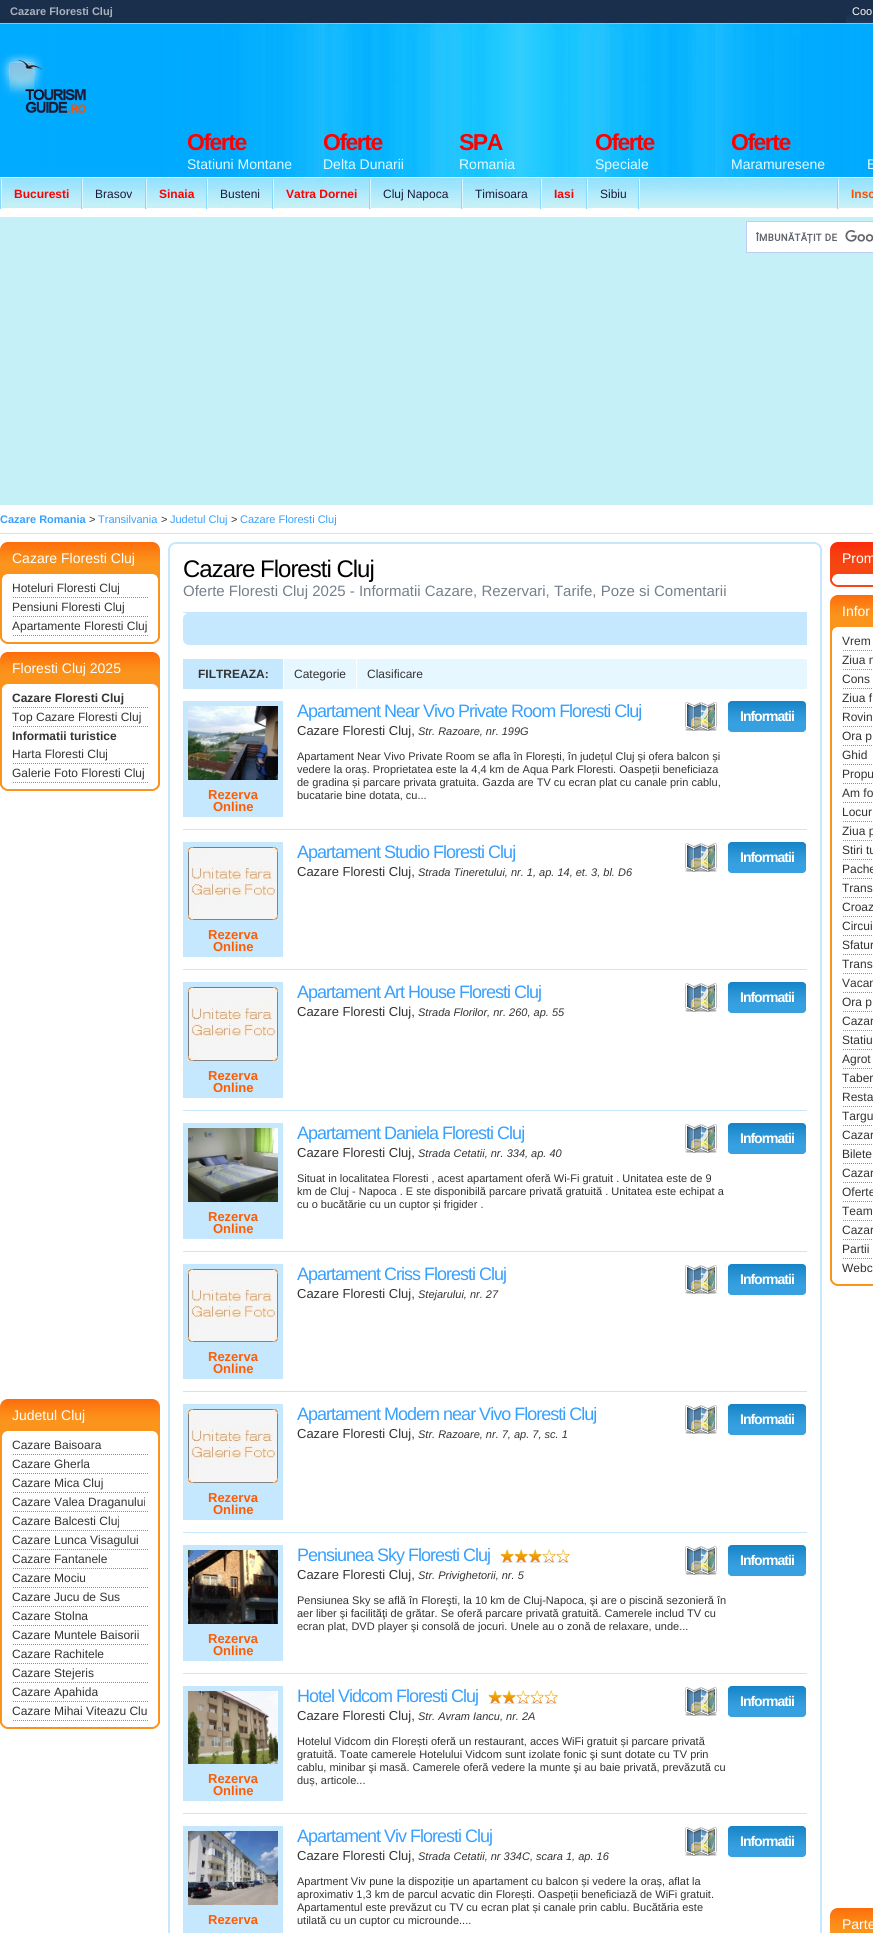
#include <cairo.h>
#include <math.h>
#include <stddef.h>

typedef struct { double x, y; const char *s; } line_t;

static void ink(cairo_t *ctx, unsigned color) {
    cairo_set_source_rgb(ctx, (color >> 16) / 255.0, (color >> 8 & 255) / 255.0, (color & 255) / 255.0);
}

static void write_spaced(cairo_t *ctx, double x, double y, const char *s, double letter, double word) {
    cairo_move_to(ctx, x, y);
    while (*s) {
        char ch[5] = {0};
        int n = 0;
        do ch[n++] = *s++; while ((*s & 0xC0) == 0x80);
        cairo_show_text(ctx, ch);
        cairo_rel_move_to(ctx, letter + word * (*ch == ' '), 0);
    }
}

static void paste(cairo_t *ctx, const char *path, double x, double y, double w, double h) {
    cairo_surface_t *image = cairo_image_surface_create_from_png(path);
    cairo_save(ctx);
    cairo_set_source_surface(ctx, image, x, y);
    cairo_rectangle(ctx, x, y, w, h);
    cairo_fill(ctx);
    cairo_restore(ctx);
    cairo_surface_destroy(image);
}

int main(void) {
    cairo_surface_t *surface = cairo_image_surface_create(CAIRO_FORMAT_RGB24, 873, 1933);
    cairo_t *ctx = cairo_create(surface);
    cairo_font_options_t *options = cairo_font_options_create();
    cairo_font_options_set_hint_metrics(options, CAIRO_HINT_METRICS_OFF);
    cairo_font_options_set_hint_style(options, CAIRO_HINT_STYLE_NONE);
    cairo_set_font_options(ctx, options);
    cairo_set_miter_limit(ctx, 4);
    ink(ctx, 0xFFFFFF);
    cairo_paint(ctx);
    paste(ctx, "media/1.png", 0, 0, 873, 208);
    cairo_select_font_face(ctx, "Liberation Sans", CAIRO_FONT_SLANT_NORMAL, CAIRO_FONT_WEIGHT_BOLD);
    cairo_set_font_size(ctx, 11);
    ink(ctx, 0xAAB2BD);
    cairo_move_to(ctx, 10, 15);
    cairo_show_text(ctx, "Cazare Floresti Cluj");
    paste(ctx, "media/2.png", 846, 15, 27, 8);
    cairo_select_font_face(ctx, "Liberation Sans", CAIRO_FONT_SLANT_NORMAL, CAIRO_FONT_WEIGHT_NORMAL);
    ink(ctx, 0xFFFFFF);
    cairo_move_to(ctx, 852, 15);
    cairo_show_text(ctx, "Coo");
    paste(ctx, "media/3.png", 0, 53, 86, 60);
    cairo_select_font_face(ctx, "Liberation Sans", CAIRO_FONT_SLANT_NORMAL, CAIRO_FONT_WEIGHT_BOLD);
    cairo_set_font_size(ctx, 23);
    ink(ctx, 0xFF0000);
    write_spaced(ctx, 187, 150, "Oferte", -1.5, 0);
    cairo_select_font_face(ctx, "Liberation Sans", CAIRO_FONT_SLANT_NORMAL, CAIRO_FONT_WEIGHT_NORMAL);
    cairo_set_font_size(ctx, 14);
    ink(ctx, 0xE3FBFF);
    cairo_move_to(ctx, 187, 169);
    cairo_show_text(ctx, "Statiuni Montane");
    cairo_select_font_face(ctx, "Liberation Sans", CAIRO_FONT_SLANT_NORMAL, CAIRO_FONT_WEIGHT_BOLD);
    cairo_set_font_size(ctx, 23);
    ink(ctx, 0xFF0000);
    write_spaced(ctx, 323, 150, "Oferte", -1.5, 0);
    cairo_select_font_face(ctx, "Liberation Sans", CAIRO_FONT_SLANT_NORMAL, CAIRO_FONT_WEIGHT_NORMAL);
    cairo_set_font_size(ctx, 14);
    ink(ctx, 0xE3FBFF);
    cairo_move_to(ctx, 323, 169);
    cairo_show_text(ctx, "Delta Dunarii");
    cairo_select_font_face(ctx, "Liberation Sans", CAIRO_FONT_SLANT_NORMAL, CAIRO_FONT_WEIGHT_BOLD);
    cairo_set_font_size(ctx, 23);
    ink(ctx, 0xFF0000);
    write_spaced(ctx, 459, 150, "SPA", -1.5, 0);
    cairo_select_font_face(ctx, "Liberation Sans", CAIRO_FONT_SLANT_NORMAL, CAIRO_FONT_WEIGHT_NORMAL);
    cairo_set_font_size(ctx, 14);
    ink(ctx, 0xE3FBFF);
    cairo_move_to(ctx, 459, 169);
    cairo_show_text(ctx, "Romania");
    cairo_select_font_face(ctx, "Liberation Sans", CAIRO_FONT_SLANT_NORMAL, CAIRO_FONT_WEIGHT_BOLD);
    cairo_set_font_size(ctx, 23);
    ink(ctx, 0xFF0000);
    write_spaced(ctx, 595, 150, "Oferte", -1.5, 0);
    cairo_select_font_face(ctx, "Liberation Sans", CAIRO_FONT_SLANT_NORMAL, CAIRO_FONT_WEIGHT_NORMAL);
    cairo_set_font_size(ctx, 14);
    ink(ctx, 0xE3FBFF);
    cairo_move_to(ctx, 595, 169);
    cairo_show_text(ctx, "Speciale");
    cairo_select_font_face(ctx, "Liberation Sans", CAIRO_FONT_SLANT_NORMAL, CAIRO_FONT_WEIGHT_BOLD);
    cairo_set_font_size(ctx, 23);
    ink(ctx, 0xFF0000);
    write_spaced(ctx, 731, 150, "Oferte", -1.5, 0);
    cairo_select_font_face(ctx, "Liberation Sans", CAIRO_FONT_SLANT_NORMAL, CAIRO_FONT_WEIGHT_NORMAL);
    cairo_set_font_size(ctx, 14);
    ink(ctx, 0xE3FBFF);
    cairo_move_to(ctx, 731, 169);
    cairo_show_text(ctx, "Maramuresene");
    cairo_move_to(ctx, 867, 169);
    cairo_show_text(ctx, "B");
    paste(ctx, "media/4.png", 0, 179, 2, 30);
    paste(ctx, "media/4.png", 81, 179, 2, 30);
    cairo_select_font_face(ctx, "Liberation Sans", CAIRO_FONT_SLANT_NORMAL, CAIRO_FONT_WEIGHT_BOLD);
    cairo_set_font_size(ctx, 12);
    ink(ctx, 0xFF0000);
    cairo_move_to(ctx, 14, 198);
    cairo_show_text(ctx, "Bucuresti");
    paste(ctx, "media/4.png", 145, 179, 2, 30);
    cairo_select_font_face(ctx, "Liberation Sans", CAIRO_FONT_SLANT_NORMAL, CAIRO_FONT_WEIGHT_NORMAL);
    ink(ctx, 0x1C1A36);
    cairo_move_to(ctx, 95, 198);
    cairo_show_text(ctx, "Brasov");
    paste(ctx, "media/4.png", 206, 179, 2, 30);
    cairo_select_font_face(ctx, "Liberation Sans", CAIRO_FONT_SLANT_NORMAL, CAIRO_FONT_WEIGHT_BOLD);
    ink(ctx, 0xFF0000);
    cairo_move_to(ctx, 159, 198);
    cairo_show_text(ctx, "Sinaia");
    paste(ctx, "media/4.png", 272, 179, 2, 30);
    cairo_select_font_face(ctx, "Liberation Sans", CAIRO_FONT_SLANT_NORMAL, CAIRO_FONT_WEIGHT_NORMAL);
    ink(ctx, 0x1C1A36);
    cairo_move_to(ctx, 220, 198);
    cairo_show_text(ctx, "Busteni");
    paste(ctx, "media/4.png", 369, 179, 2, 30);
    cairo_select_font_face(ctx, "Liberation Sans", CAIRO_FONT_SLANT_NORMAL, CAIRO_FONT_WEIGHT_BOLD);
    ink(ctx, 0xFF0000);
    cairo_move_to(ctx, 286, 198);
    cairo_show_text(ctx, "Vatra Dornei");
    paste(ctx, "media/4.png", 461, 179, 2, 30);
    cairo_select_font_face(ctx, "Liberation Sans", CAIRO_FONT_SLANT_NORMAL, CAIRO_FONT_WEIGHT_NORMAL);
    ink(ctx, 0x1C1A36);
    cairo_move_to(ctx, 383, 198);
    cairo_show_text(ctx, "Cluj Napoca");
    paste(ctx, "media/4.png", 540, 179, 2, 30);
    cairo_move_to(ctx, 475, 198);
    cairo_show_text(ctx, "Timisoara");
    paste(ctx, "media/4.png", 586, 179, 2, 30);
    cairo_select_font_face(ctx, "Liberation Sans", CAIRO_FONT_SLANT_NORMAL, CAIRO_FONT_WEIGHT_BOLD);
    ink(ctx, 0xFF0000);
    cairo_move_to(ctx, 554, 198);
    cairo_show_text(ctx, "Iasi");
    paste(ctx, "media/4.png", 638, 179, 2, 30);
    cairo_select_font_face(ctx, "Liberation Sans", CAIRO_FONT_SLANT_NORMAL, CAIRO_FONT_WEIGHT_NORMAL);
    ink(ctx, 0x1C1A36);
    cairo_move_to(ctx, 600, 198);
    cairo_show_text(ctx, "Sibiu");
    paste(ctx, "media/4.png", 837, 179, 2, 30);
    cairo_select_font_face(ctx, "Liberation Sans", CAIRO_FONT_SLANT_NORMAL, CAIRO_FONT_WEIGHT_BOLD);
    ink(ctx, 0xFF4E00);
    cairo_move_to(ctx, 851, 198);
    cairo_show_text(ctx, "Insc");
    ink(ctx, 0xC5F0F7);
    cairo_rectangle(ctx, 0, 217, 873, 288);
    cairo_fill(ctx);
    ink(ctx, 0xFFFFFF);
    cairo_rectangle(ctx, 746.5, 221.5, 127, 31);
    cairo_fill_preserve(ctx);
    ink(ctx, 0xBCCDF0);
    cairo_set_line_width(ctx, 1);
    cairo_stroke(ctx);
    paste(ctx, "media/5.png", 756, 230, 117, 14);
    ink(ctx, 0xC5E8FF);
    cairo_rectangle(ctx, 0, 533, 873, 1);
    cairo_fill(ctx);
    cairo_set_font_size(ctx, 11);
    ink(ctx, 0x37A0FF);
    cairo_move_to(ctx, 0, 523);
    cairo_show_text(ctx, "Cazare Romania");
    cairo_select_font_face(ctx, "Liberation Sans", CAIRO_FONT_SLANT_NORMAL, CAIRO_FONT_WEIGHT_NORMAL);
    ink(ctx, 0x333333);
    cairo_move_to(ctx, 89, 523);
    cairo_show_text(ctx, ">");
    ink(ctx, 0x37A0FF);
    cairo_move_to(ctx, 98, 523);
    cairo_show_text(ctx, "Transilvania");
    ink(ctx, 0x333333);
    cairo_move_to(ctx, 161, 523);
    cairo_show_text(ctx, ">");
    ink(ctx, 0x37A0FF);
    cairo_move_to(ctx, 170, 523);
    cairo_show_text(ctx, "Judetul Cluj");
    ink(ctx, 0x333333);
    cairo_move_to(ctx, 231, 523);
    cairo_show_text(ctx, ">");
    ink(ctx, 0x37A0FF);
    cairo_move_to(ctx, 240, 523);
    cairo_show_text(ctx, "Cazare Floresti Cluj");
    paste(ctx, "media/6.png", 0, 579, 160, 59);
    paste(ctx, "media/7.png", 0, 542, 160, 37);
    cairo_set_font_size(ctx, 14);
    ink(ctx, 0xFFFFFF);
    cairo_move_to(ctx, 12, 563);
    cairo_show_text(ctx, "Cazare Floresti Cluj");
    paste(ctx, "media/8.png", 13, 597, 135, 1);
    cairo_set_font_size(ctx, 12);
    ink(ctx, 0x333333);
    cairo_move_to(ctx, 12, 592);
    cairo_show_text(ctx, "Hoteluri Floresti Cluj");
    paste(ctx, "media/8.png", 13, 616, 135, 1);
    cairo_move_to(ctx, 12, 611);
    cairo_show_text(ctx, "Pensiuni Floresti Cluj");
    paste(ctx, "media/8.png", 13, 635, 135, 1);
    cairo_move_to(ctx, 12, 630);
    cairo_show_text(ctx, "Apartamente Floresti Cluj");
    paste(ctx, "media/9.png", 0, 638, 160, 6);
    paste(ctx, "media/10.png", 0, 689, 160, 96);
    paste(ctx, "media/7.png", 0, 652, 160, 37);
    cairo_set_font_size(ctx, 14);
    ink(ctx, 0xFFFFFF);
    cairo_move_to(ctx, 12, 673);
    cairo_show_text(ctx, "Floresti Cluj 2025");
    paste(ctx, "media/8.png", 13, 707, 135, 1);
    cairo_select_font_face(ctx, "Liberation Sans", CAIRO_FONT_SLANT_NORMAL, CAIRO_FONT_WEIGHT_BOLD);
    cairo_set_font_size(ctx, 12);
    ink(ctx, 0x333333);
    cairo_move_to(ctx, 12, 702);
    cairo_show_text(ctx, "Cazare Floresti Cluj");
    paste(ctx, "media/8.png", 13, 726, 135, 1);
    cairo_select_font_face(ctx, "Liberation Sans", CAIRO_FONT_SLANT_NORMAL, CAIRO_FONT_WEIGHT_NORMAL);
    cairo_move_to(ctx, 12, 721);
    cairo_show_text(ctx, "Top Cazare Floresti Cluj");
    cairo_select_font_face(ctx, "Liberation Sans", CAIRO_FONT_SLANT_NORMAL, CAIRO_FONT_WEIGHT_BOLD);
    cairo_move_to(ctx, 12, 740);
    cairo_show_text(ctx, "Informatii turistice");
    paste(ctx, "media/8.png", 13, 763, 135, 1);
    cairo_select_font_face(ctx, "Liberation Sans", CAIRO_FONT_SLANT_NORMAL, CAIRO_FONT_WEIGHT_NORMAL);
    cairo_move_to(ctx, 12, 758);
    cairo_show_text(ctx, "Harta Floresti Cluj");
    paste(ctx, "media/8.png", 13, 782, 135, 1);
    cairo_move_to(ctx, 12, 777);
    cairo_show_text(ctx, "Galerie Foto Floresti Cluj");
    paste(ctx, "media/9.png", 0, 785, 160, 6);
    paste(ctx, "media/11.png", 0, 1436, 160, 287);
    paste(ctx, "media/7.png", 0, 1399, 160, 37);
    cairo_set_font_size(ctx, 14);
    ink(ctx, 0xFFFFFF);
    cairo_move_to(ctx, 12, 1420);
    cairo_show_text(ctx, "Judetul Cluj");
    paste(ctx, "media/8.png", 13, 1454, 135, 1);
    cairo_set_font_size(ctx, 12);
    ink(ctx, 0x333333);
    cairo_move_to(ctx, 12, 1449);
    cairo_show_text(ctx, "Cazare Baisoara");
    paste(ctx, "media/8.png", 13, 1473, 135, 1);
    cairo_move_to(ctx, 12, 1468);
    cairo_show_text(ctx, "Cazare Gherla");
    paste(ctx, "media/8.png", 13, 1492, 135, 1);
    cairo_move_to(ctx, 12, 1487);
    cairo_show_text(ctx, "Cazare Mica Cluj");
    paste(ctx, "media/8.png", 13, 1511, 135, 1);
    cairo_move_to(ctx, 12, 1506);
    cairo_show_text(ctx, "Cazare Valea Draganului");
    paste(ctx, "media/8.png", 13, 1530, 135, 1);
    cairo_move_to(ctx, 12, 1525);
    cairo_show_text(ctx, "Cazare Balcesti Cluj");
    paste(ctx, "media/8.png", 13, 1549, 135, 1);
    cairo_move_to(ctx, 12, 1544);
    cairo_show_text(ctx, "Cazare Lunca Visagului");
    paste(ctx, "media/8.png", 13, 1568, 135, 1);
    cairo_move_to(ctx, 12, 1563);
    cairo_show_text(ctx, "Cazare Fantanele");
    paste(ctx, "media/8.png", 13, 1587, 135, 1);
    cairo_move_to(ctx, 12, 1582);
    cairo_show_text(ctx, "Cazare Mociu");
    paste(ctx, "media/8.png", 13, 1606, 135, 1);
    cairo_move_to(ctx, 12, 1601);
    cairo_show_text(ctx, "Cazare Jucu de Sus");
    paste(ctx, "media/8.png", 13, 1625, 135, 1);
    cairo_move_to(ctx, 12, 1620);
    cairo_show_text(ctx, "Cazare Stolna");
    paste(ctx, "media/8.png", 13, 1644, 135, 1);
    cairo_move_to(ctx, 12, 1639);
    cairo_show_text(ctx, "Cazare Muntele Baisorii");
    paste(ctx, "media/8.png", 13, 1663, 135, 1);
    cairo_move_to(ctx, 12, 1658);
    cairo_show_text(ctx, "Cazare Rachitele");
    paste(ctx, "media/8.png", 13, 1682, 135, 1);
    cairo_move_to(ctx, 12, 1677);
    cairo_show_text(ctx, "Cazare Stejeris");
    paste(ctx, "media/8.png", 13, 1701, 135, 1);
    cairo_move_to(ctx, 12, 1696);
    cairo_show_text(ctx, "Cazare Apahida");
    paste(ctx, "media/8.png", 13, 1720, 135, 1);
    cairo_move_to(ctx, 12, 1715);
    cairo_show_text(ctx, "Cazare Mihai Viteazu Clu");
    paste(ctx, "media/9.png", 0, 1723, 160, 6);
    paste(ctx, "media/12.png", 168, 542, 15, 15);
    ink(ctx, 0xC5E8FF);
    cairo_rectangle(ctx, 183, 542, 624, 2);
    cairo_fill(ctx);
    paste(ctx, "media/13.png", 807, 542, 15, 15);
    cairo_rectangle(ctx, 168, 557, 2, 1376);
    cairo_fill(ctx);
    cairo_rectangle(ctx, 183, 612, 624, 1);
    cairo_fill(ctx);
    cairo_set_font_size(ctx, 24);
    ink(ctx, 0x000000);
    write_spaced(ctx, 183, 577, "Cazare Floresti Cluj", -1, 0);
    cairo_set_font_size(ctx, 15);
    ink(ctx, 0x75808A);
    cairo_move_to(ctx, 183, 596);
    cairo_show_text(ctx, "Oferte Floresti Cluj 2025 - Informatii Cazare, Rezervari, Tarife, Poze si Comentarii");
    ink(ctx, 0xC5E8FF);
    cairo_rectangle(ctx, 188, 613, 619, 32);
    cairo_fill(ctx);
    paste(ctx, "media/14.png", 183, 613, 5, 32);
    ink(ctx, 0xE6F7FF);
    cairo_rectangle(ctx, 284, 659, 523, 30);
    cairo_fill(ctx);
    ink(ctx, 0xC5E8FF);
    cairo_rectangle(ctx, 183, 659, 100, 30);
    cairo_fill(ctx);
    cairo_select_font_face(ctx, "Liberation Sans", CAIRO_FONT_SLANT_NORMAL, CAIRO_FONT_WEIGHT_BOLD);
    cairo_set_font_size(ctx, 12);
    ink(ctx, 0x333333);
    cairo_move_to(ctx, 198, 678);
    cairo_show_text(ctx, "FILTREAZA:");
    cairo_select_font_face(ctx, "Liberation Sans", CAIRO_FONT_SLANT_NORMAL, CAIRO_FONT_WEIGHT_NORMAL);
    cairo_move_to(ctx, 294, 678);
    cairo_show_text(ctx, "Categorie");
    ink(ctx, 0xFFFFFF);
    cairo_rectangle(ctx, 356, 659, 1, 30);
    cairo_fill(ctx);
    ink(ctx, 0x333333);
    cairo_move_to(ctx, 367, 678);
    cairo_show_text(ctx, "Clasificare");
    cairo_set_font_size(ctx, 18);
    ink(ctx, 0x37A0FF);
    write_spaced(ctx, 297, 717, "Apartament Near Vivo Private Room Floresti Cluj", -1, 0);
    paste(ctx, "media/15.png", 685, 702, 32, 29);
    cairo_set_font_size(ctx, 13);
    ink(ctx, 0x333333);
    cairo_move_to(ctx, 297, 735);
    cairo_show_text(ctx, "Cazare Floresti Cluj,");
    cairo_select_font_face(ctx, "Liberation Sans", CAIRO_FONT_SLANT_ITALIC, CAIRO_FONT_WEIGHT_NORMAL);
    cairo_set_font_size(ctx, 11);
    cairo_move_to(ctx, 418, 735);
    cairo_show_text(ctx, "Str. Razoare, nr. 199G");
    cairo_select_font_face(ctx, "Liberation Sans", CAIRO_FONT_SLANT_NORMAL, CAIRO_FONT_WEIGHT_NORMAL);
    {
        static const line_t items[] = {
            {297, 760, "Apartament Near Vivo Private Room se afla în Florești, în județul Cluj și ofera balcon și"},
            {297, 773, "vedere la oraș. Proprietatea este la 4,4 km de Aqua Park Floresti. Oaspeții beneficiaza"},
            {297, 786, "de gradina și parcare privata gratuita. Gazda are TV cu ecran plat cu canale prin cablu,"},
            {297, 799, "bucatarie bine dotata, cu..."},
        };
        for (size_t i = 0; i < sizeof items / sizeof *items; i++) {
            cairo_move_to(ctx, items[i].x, items[i].y);
            cairo_show_text(ctx, items[i].s);
        }
    }
    ink(ctx, 0xC5E8FF);
    cairo_rectangle(ctx, 297, 829, 510, 1);
    cairo_fill(ctx);
    paste(ctx, "media/16.png", 728, 701, 74, 31);
    paste(ctx, "media/17.png", 802, 701, 4, 31);
    cairo_select_font_face(ctx, "Liberation Sans", CAIRO_FONT_SLANT_NORMAL, CAIRO_FONT_WEIGHT_BOLD);
    cairo_set_font_size(ctx, 14);
    ink(ctx, 0xFFFFFF);
    write_spaced(ctx, 740, 721, "Informatii", -1, 0);
    ink(ctx, 0xC5E8FF);
    cairo_rectangle(ctx, 183, 829, 114, 1);
    cairo_fill(ctx);
    cairo_rectangle(ctx, 185.5, 703.5, 95, 79);
    cairo_set_line_width(ctx, 5);
    cairo_stroke(ctx);
    paste(ctx, "media/18.png", 188, 706, 90, 74);
    cairo_rectangle(ctx, 183, 785, 100, 32);
    cairo_fill(ctx);
    cairo_set_font_size(ctx, 13);
    ink(ctx, 0xFF5C00);
    cairo_move_to(ctx, 208, 799);
    cairo_show_text(ctx, "Rezerva");
    cairo_move_to(ctx, 213, 811);
    cairo_show_text(ctx, "Online");
    cairo_select_font_face(ctx, "Liberation Sans", CAIRO_FONT_SLANT_NORMAL, CAIRO_FONT_WEIGHT_NORMAL);
    cairo_set_font_size(ctx, 18);
    ink(ctx, 0x37A0FF);
    write_spaced(ctx, 297, 858, "Apartament Studio Floresti Cluj", -1, 0);
    paste(ctx, "media/15.png", 685, 843, 32, 29);
    cairo_set_font_size(ctx, 13);
    ink(ctx, 0x333333);
    cairo_move_to(ctx, 297, 876);
    cairo_show_text(ctx, "Cazare Floresti Cluj,");
    cairo_select_font_face(ctx, "Liberation Sans", CAIRO_FONT_SLANT_ITALIC, CAIRO_FONT_WEIGHT_NORMAL);
    cairo_set_font_size(ctx, 11);
    cairo_move_to(ctx, 418, 876);
    cairo_show_text(ctx, "Strada Tineretului, nr. 1, ap. 14, et. 3, bl. D6");
    ink(ctx, 0xC5E8FF);
    cairo_rectangle(ctx, 297, 969, 510, 1);
    cairo_fill(ctx);
    paste(ctx, "media/16.png", 728, 842, 74, 31);
    paste(ctx, "media/17.png", 802, 842, 4, 31);
    cairo_select_font_face(ctx, "Liberation Sans", CAIRO_FONT_SLANT_NORMAL, CAIRO_FONT_WEIGHT_BOLD);
    cairo_set_font_size(ctx, 14);
    ink(ctx, 0xFFFFFF);
    write_spaced(ctx, 740, 862, "Informatii", -1, 0);
    ink(ctx, 0xC5E8FF);
    cairo_rectangle(ctx, 183, 969, 114, 1);
    cairo_fill(ctx);
    cairo_rectangle(ctx, 185.5, 844.5, 95, 78);
    cairo_stroke(ctx);
    paste(ctx, "media/19.png", 188, 847, 90, 73);
    cairo_rectangle(ctx, 183, 925, 100, 32);
    cairo_fill(ctx);
    cairo_set_font_size(ctx, 13);
    ink(ctx, 0xFF5C00);
    cairo_move_to(ctx, 208, 939);
    cairo_show_text(ctx, "Rezerva");
    cairo_move_to(ctx, 213, 951);
    cairo_show_text(ctx, "Online");
    cairo_select_font_face(ctx, "Liberation Sans", CAIRO_FONT_SLANT_NORMAL, CAIRO_FONT_WEIGHT_NORMAL);
    cairo_set_font_size(ctx, 18);
    ink(ctx, 0x37A0FF);
    write_spaced(ctx, 297, 998, "Apartament Art House Floresti Cluj", -1, 0);
    paste(ctx, "media/15.png", 685, 983, 32, 29);
    cairo_set_font_size(ctx, 13);
    ink(ctx, 0x333333);
    cairo_move_to(ctx, 297, 1016);
    cairo_show_text(ctx, "Cazare Floresti Cluj,");
    cairo_select_font_face(ctx, "Liberation Sans", CAIRO_FONT_SLANT_ITALIC, CAIRO_FONT_WEIGHT_NORMAL);
    cairo_set_font_size(ctx, 11);
    cairo_move_to(ctx, 418, 1016);
    cairo_show_text(ctx, "Strada Florilor, nr. 260, ap. 55");
    ink(ctx, 0xC5E8FF);
    cairo_rectangle(ctx, 297, 1110, 510, 1);
    cairo_fill(ctx);
    paste(ctx, "media/16.png", 728, 982, 74, 31);
    paste(ctx, "media/17.png", 802, 982, 4, 31);
    cairo_select_font_face(ctx, "Liberation Sans", CAIRO_FONT_SLANT_NORMAL, CAIRO_FONT_WEIGHT_BOLD);
    cairo_set_font_size(ctx, 14);
    ink(ctx, 0xFFFFFF);
    write_spaced(ctx, 740, 1002, "Informatii", -1, 0);
    ink(ctx, 0xC5E8FF);
    cairo_rectangle(ctx, 183, 1110, 114, 1);
    cairo_fill(ctx);
    cairo_rectangle(ctx, 185.5, 984.5, 95, 79);
    cairo_stroke(ctx);
    paste(ctx, "media/20.png", 188, 987, 90, 74);
    cairo_rectangle(ctx, 183, 1066, 100, 32);
    cairo_fill(ctx);
    cairo_set_font_size(ctx, 13);
    ink(ctx, 0xFF5C00);
    cairo_move_to(ctx, 208, 1080);
    cairo_show_text(ctx, "Rezerva");
    cairo_move_to(ctx, 213, 1092);
    cairo_show_text(ctx, "Online");
    cairo_select_font_face(ctx, "Liberation Sans", CAIRO_FONT_SLANT_NORMAL, CAIRO_FONT_WEIGHT_NORMAL);
    cairo_set_font_size(ctx, 18);
    ink(ctx, 0x37A0FF);
    write_spaced(ctx, 297, 1139, "Apartament Daniela Floresti Cluj", -1, 0);
    paste(ctx, "media/15.png", 685, 1124, 32, 29);
    cairo_set_font_size(ctx, 13);
    ink(ctx, 0x333333);
    cairo_move_to(ctx, 297, 1157);
    cairo_show_text(ctx, "Cazare Floresti Cluj,");
    cairo_select_font_face(ctx, "Liberation Sans", CAIRO_FONT_SLANT_ITALIC, CAIRO_FONT_WEIGHT_NORMAL);
    cairo_set_font_size(ctx, 11);
    cairo_move_to(ctx, 418, 1157);
    cairo_show_text(ctx, "Strada Cetatii, nr. 334, ap. 40");
    cairo_select_font_face(ctx, "Liberation Sans", CAIRO_FONT_SLANT_NORMAL, CAIRO_FONT_WEIGHT_NORMAL);
    {
        static const line_t items[] = {
            {297, 1182, "Situat in localitatea Floresti , acest apartament oferă Wi-Fi gratuit . Unitatea este de 9"},
            {297, 1195, "km de Cluj - Napoca . E ste disponibilă parcare privată gratuită . Unitatea este echipat a"},
            {297, 1208, "cu o bucătărie cu un cuptor și frigider ."},
        };
        for (size_t i = 0; i < sizeof items / sizeof *items; i++) {
            cairo_move_to(ctx, items[i].x, items[i].y);
            cairo_show_text(ctx, items[i].s);
        }
    }
    ink(ctx, 0xC5E8FF);
    cairo_rectangle(ctx, 297, 1251, 510, 1);
    cairo_fill(ctx);
    paste(ctx, "media/16.png", 728, 1123, 74, 31);
    paste(ctx, "media/17.png", 802, 1123, 4, 31);
    cairo_select_font_face(ctx, "Liberation Sans", CAIRO_FONT_SLANT_NORMAL, CAIRO_FONT_WEIGHT_BOLD);
    cairo_set_font_size(ctx, 14);
    ink(ctx, 0xFFFFFF);
    write_spaced(ctx, 740, 1143, "Informatii", -1, 0);
    ink(ctx, 0xC5E8FF);
    cairo_rectangle(ctx, 183, 1251, 114, 1);
    cairo_fill(ctx);
    cairo_rectangle(ctx, 185.5, 1125.5, 95, 79);
    cairo_stroke(ctx);
    paste(ctx, "media/21.png", 188, 1128, 90, 74);
    cairo_rectangle(ctx, 183, 1207, 100, 32);
    cairo_fill(ctx);
    cairo_set_font_size(ctx, 13);
    ink(ctx, 0xFF5C00);
    cairo_move_to(ctx, 208, 1221);
    cairo_show_text(ctx, "Rezerva");
    cairo_move_to(ctx, 213, 1233);
    cairo_show_text(ctx, "Online");
    cairo_select_font_face(ctx, "Liberation Sans", CAIRO_FONT_SLANT_NORMAL, CAIRO_FONT_WEIGHT_NORMAL);
    cairo_set_font_size(ctx, 18);
    ink(ctx, 0x37A0FF);
    write_spaced(ctx, 297, 1280, "Apartament Criss Floresti Cluj", -1, 0);
    paste(ctx, "media/15.png", 685, 1265, 32, 29);
    cairo_set_font_size(ctx, 13);
    ink(ctx, 0x333333);
    cairo_move_to(ctx, 297, 1298);
    cairo_show_text(ctx, "Cazare Floresti Cluj,");
    cairo_select_font_face(ctx, "Liberation Sans", CAIRO_FONT_SLANT_ITALIC, CAIRO_FONT_WEIGHT_NORMAL);
    cairo_set_font_size(ctx, 11);
    cairo_move_to(ctx, 418, 1298);
    cairo_show_text(ctx, "Stejarului, nr. 27");
    ink(ctx, 0xC5E8FF);
    cairo_rectangle(ctx, 297, 1391, 510, 1);
    cairo_fill(ctx);
    paste(ctx, "media/16.png", 728, 1264, 74, 31);
    paste(ctx, "media/17.png", 802, 1264, 4, 31);
    cairo_select_font_face(ctx, "Liberation Sans", CAIRO_FONT_SLANT_NORMAL, CAIRO_FONT_WEIGHT_BOLD);
    cairo_set_font_size(ctx, 14);
    ink(ctx, 0xFFFFFF);
    write_spaced(ctx, 740, 1284, "Informatii", -1, 0);
    ink(ctx, 0xC5E8FF);
    cairo_rectangle(ctx, 183, 1391, 114, 1);
    cairo_fill(ctx);
    cairo_rectangle(ctx, 185.5, 1266.5, 95, 78);
    cairo_stroke(ctx);
    paste(ctx, "media/19.png", 188, 1269, 90, 73);
    cairo_rectangle(ctx, 183, 1347, 100, 32);
    cairo_fill(ctx);
    cairo_set_font_size(ctx, 13);
    ink(ctx, 0xFF5C00);
    cairo_move_to(ctx, 208, 1361);
    cairo_show_text(ctx, "Rezerva");
    cairo_move_to(ctx, 213, 1373);
    cairo_show_text(ctx, "Online");
    cairo_select_font_face(ctx, "Liberation Sans", CAIRO_FONT_SLANT_NORMAL, CAIRO_FONT_WEIGHT_NORMAL);
    cairo_set_font_size(ctx, 18);
    ink(ctx, 0x37A0FF);
    write_spaced(ctx, 297, 1420, "Apartament Modern near Vivo Floresti Cluj", -1, 0);
    paste(ctx, "media/15.png", 685, 1405, 32, 29);
    cairo_set_font_size(ctx, 13);
    ink(ctx, 0x333333);
    cairo_move_to(ctx, 297, 1438);
    cairo_show_text(ctx, "Cazare Floresti Cluj,");
    cairo_select_font_face(ctx, "Liberation Sans", CAIRO_FONT_SLANT_ITALIC, CAIRO_FONT_WEIGHT_NORMAL);
    cairo_set_font_size(ctx, 11);
    cairo_move_to(ctx, 418, 1438);
    cairo_show_text(ctx, "Str. Razoare, nr. 7, ap. 7, sc. 1");
    ink(ctx, 0xC5E8FF);
    cairo_rectangle(ctx, 297, 1532, 510, 1);
    cairo_fill(ctx);
    paste(ctx, "media/16.png", 728, 1404, 74, 31);
    paste(ctx, "media/17.png", 802, 1404, 4, 31);
    cairo_select_font_face(ctx, "Liberation Sans", CAIRO_FONT_SLANT_NORMAL, CAIRO_FONT_WEIGHT_BOLD);
    cairo_set_font_size(ctx, 14);
    ink(ctx, 0xFFFFFF);
    write_spaced(ctx, 740, 1424, "Informatii", -1, 0);
    ink(ctx, 0xC5E8FF);
    cairo_rectangle(ctx, 183, 1532, 114, 1);
    cairo_fill(ctx);
    cairo_rectangle(ctx, 185.5, 1406.5, 95, 79);
    cairo_stroke(ctx);
    paste(ctx, "media/20.png", 188, 1409, 90, 74);
    cairo_rectangle(ctx, 183, 1488, 100, 32);
    cairo_fill(ctx);
    cairo_set_font_size(ctx, 13);
    ink(ctx, 0xFF5C00);
    cairo_move_to(ctx, 208, 1502);
    cairo_show_text(ctx, "Rezerva");
    cairo_move_to(ctx, 213, 1514);
    cairo_show_text(ctx, "Online");
    cairo_select_font_face(ctx, "Liberation Sans", CAIRO_FONT_SLANT_NORMAL, CAIRO_FONT_WEIGHT_NORMAL);
    cairo_set_font_size(ctx, 18);
    ink(ctx, 0x37A0FF);
    write_spaced(ctx, 297, 1561, "Pensiunea Sky Floresti Cluj", -1, 0);
    paste(ctx, "media/22.png", 500, 1549, 70, 14);
    paste(ctx, "media/15.png", 685, 1546, 32, 29);
    cairo_set_font_size(ctx, 13);
    ink(ctx, 0x333333);
    cairo_move_to(ctx, 297, 1579);
    cairo_show_text(ctx, "Cazare Floresti Cluj,");
    cairo_select_font_face(ctx, "Liberation Sans", CAIRO_FONT_SLANT_ITALIC, CAIRO_FONT_WEIGHT_NORMAL);
    cairo_set_font_size(ctx, 11);
    cairo_move_to(ctx, 418, 1579);
    cairo_show_text(ctx, "Str. Privighetorii, nr. 5");
    cairo_select_font_face(ctx, "Liberation Sans", CAIRO_FONT_SLANT_NORMAL, CAIRO_FONT_WEIGHT_NORMAL);
    {
        static const line_t items[] = {
            {297, 1604, "Pensiunea Sky se află în Floreşti, la 10 km de Cluj-Napoca, şi are o piscină sezonieră în"},
            {297, 1617, "aer liber şi facilităţi de grătar. Se oferă parcare privată gratuită. Camerele includ TV cu"},
            {297, 1630, "ecran plat, DVD player şi consolă de jocuri. Unele au o zonă de relaxare, unde..."},
        };
        for (size_t i = 0; i < sizeof items / sizeof *items; i++) {
            cairo_move_to(ctx, items[i].x, items[i].y);
            cairo_show_text(ctx, items[i].s);
        }
    }
    ink(ctx, 0xC5E8FF);
    cairo_rectangle(ctx, 297, 1673, 510, 1);
    cairo_fill(ctx);
    paste(ctx, "media/16.png", 728, 1545, 74, 31);
    paste(ctx, "media/17.png", 802, 1545, 4, 31);
    cairo_select_font_face(ctx, "Liberation Sans", CAIRO_FONT_SLANT_NORMAL, CAIRO_FONT_WEIGHT_BOLD);
    cairo_set_font_size(ctx, 14);
    ink(ctx, 0xFFFFFF);
    write_spaced(ctx, 740, 1565, "Informatii", -1, 0);
    ink(ctx, 0xC5E8FF);
    cairo_rectangle(ctx, 183, 1673, 114, 1);
    cairo_fill(ctx);
    cairo_rectangle(ctx, 185.5, 1547.5, 95, 79);
    cairo_stroke(ctx);
    paste(ctx, "media/23.png", 188, 1550, 90, 74);
    cairo_rectangle(ctx, 183, 1629, 100, 32);
    cairo_fill(ctx);
    cairo_set_font_size(ctx, 13);
    ink(ctx, 0xFF5C00);
    cairo_move_to(ctx, 208, 1643);
    cairo_show_text(ctx, "Rezerva");
    cairo_move_to(ctx, 213, 1655);
    cairo_show_text(ctx, "Online");
    cairo_select_font_face(ctx, "Liberation Sans", CAIRO_FONT_SLANT_NORMAL, CAIRO_FONT_WEIGHT_NORMAL);
    cairo_set_font_size(ctx, 18);
    ink(ctx, 0x37A0FF);
    write_spaced(ctx, 297, 1702, "Hotel Vidcom Floresti Cluj", -1, 0);
    paste(ctx, "media/24.png", 488, 1690, 70, 14);
    paste(ctx, "media/15.png", 685, 1687, 32, 29);
    cairo_set_font_size(ctx, 13);
    ink(ctx, 0x333333);
    cairo_move_to(ctx, 297, 1720);
    cairo_show_text(ctx, "Cazare Floresti Cluj,");
    cairo_select_font_face(ctx, "Liberation Sans", CAIRO_FONT_SLANT_ITALIC, CAIRO_FONT_WEIGHT_NORMAL);
    cairo_set_font_size(ctx, 11);
    cairo_move_to(ctx, 418, 1720);
    cairo_show_text(ctx, "Str. Avram Iancu, nr. 2A");
    cairo_select_font_face(ctx, "Liberation Sans", CAIRO_FONT_SLANT_NORMAL, CAIRO_FONT_WEIGHT_NORMAL);
    {
        static const line_t items[] = {
            {297, 1745, "Hotelul Vidcom din Florești oferă un restaurant, acces WiFi gratuit și parcare privată"},
            {297, 1758, "gratuită. Toate camerele Hotelului Vidcom sunt izolate fonic şi sunt dotate cu TV prin"},
            {297, 1771, "cablu, minibar şi masă. Camerele oferă vedere la munte şi au baie privată, prevăzută cu"},
            {297, 1784, "duș, articole..."},
        };
        for (size_t i = 0; i < sizeof items / sizeof *items; i++) {
            cairo_move_to(ctx, items[i].x, items[i].y);
            cairo_show_text(ctx, items[i].s);
        }
    }
    ink(ctx, 0xC5E8FF);
    cairo_rectangle(ctx, 297, 1813, 510, 1);
    cairo_fill(ctx);
    paste(ctx, "media/16.png", 728, 1686, 74, 31);
    paste(ctx, "media/17.png", 802, 1686, 4, 31);
    cairo_select_font_face(ctx, "Liberation Sans", CAIRO_FONT_SLANT_NORMAL, CAIRO_FONT_WEIGHT_BOLD);
    cairo_set_font_size(ctx, 14);
    ink(ctx, 0xFFFFFF);
    write_spaced(ctx, 740, 1706, "Informatii", -1, 0);
    ink(ctx, 0xC5E8FF);
    cairo_rectangle(ctx, 183, 1813, 114, 1);
    cairo_fill(ctx);
    cairo_rectangle(ctx, 185.5, 1688.5, 95, 78);
    cairo_stroke(ctx);
    paste(ctx, "media/25.png", 188, 1691, 90, 73);
    cairo_rectangle(ctx, 183, 1769, 100, 32);
    cairo_fill(ctx);
    cairo_set_font_size(ctx, 13);
    ink(ctx, 0xFF5C00);
    cairo_move_to(ctx, 208, 1783);
    cairo_show_text(ctx, "Rezerva");
    cairo_move_to(ctx, 213, 1795);
    cairo_show_text(ctx, "Online");
    cairo_select_font_face(ctx, "Liberation Sans", CAIRO_FONT_SLANT_NORMAL, CAIRO_FONT_WEIGHT_NORMAL);
    cairo_set_font_size(ctx, 18);
    ink(ctx, 0x37A0FF);
    write_spaced(ctx, 297, 1842, "Apartament Viv Floresti Cluj", -1, 0);
    paste(ctx, "media/15.png", 685, 1827, 32, 29);
    cairo_set_font_size(ctx, 13);
    ink(ctx, 0x333333);
    cairo_move_to(ctx, 297, 1860);
    cairo_show_text(ctx, "Cazare Floresti Cluj,");
    cairo_select_font_face(ctx, "Liberation Sans", CAIRO_FONT_SLANT_ITALIC, CAIRO_FONT_WEIGHT_NORMAL);
    cairo_set_font_size(ctx, 11);
    cairo_move_to(ctx, 418, 1860);
    cairo_show_text(ctx, "Strada Cetatii, nr 334C, scara 1, ap. 16");
    cairo_select_font_face(ctx, "Liberation Sans", CAIRO_FONT_SLANT_NORMAL, CAIRO_FONT_WEIGHT_NORMAL);
    {
        static const line_t items[] = {
            {297, 1885, "Apartment Viv pune la dispoziție un apartament cu balcon și vedere la oraș, aflat la"},
            {297, 1898, "aproximativ 1,3 km de parcul acvatic din Florești. Oaspeții beneficiază de WiFi gratuit."},
            {297, 1911, "Apartamentul este prevăzut cu TV cu ecran plat și canale prin cablu. Bucătăria este"},
            {297, 1924, "utilată cu un cuptor cu microunde...."},
        };
        for (size_t i = 0; i < sizeof items / sizeof *items; i++) {
            cairo_move_to(ctx, items[i].x, items[i].y);
            cairo_show_text(ctx, items[i].s);
        }
    }
    paste(ctx, "media/16.png", 728, 1826, 74, 31);
    paste(ctx, "media/17.png", 802, 1826, 4, 31);
    cairo_select_font_face(ctx, "Liberation Sans", CAIRO_FONT_SLANT_NORMAL, CAIRO_FONT_WEIGHT_BOLD);
    cairo_set_font_size(ctx, 14);
    ink(ctx, 0xFFFFFF);
    write_spaced(ctx, 740, 1846, "Informatii", -1, 0);
    cairo_rectangle(ctx, 185.5, 1828.5, 95, 79);
    ink(ctx, 0xC5E8FF);
    cairo_stroke(ctx);
    paste(ctx, "media/26.png", 188, 1831, 90, 74);
    cairo_rectangle(ctx, 183, 1910, 100, 23);
    cairo_fill(ctx);
    cairo_set_font_size(ctx, 13);
    ink(ctx, 0xFF5C00);
    cairo_move_to(ctx, 208, 1924);
    cairo_show_text(ctx, "Rezerva");
    ink(ctx, 0xC5E8FF);
    cairo_rectangle(ctx, 820, 557, 2, 1376);
    cairo_fill(ctx);
    ink(ctx, 0xF64612);
    cairo_rectangle(ctx, 830, 579, 2, 8);
    cairo_fill(ctx);
    paste(ctx, "media/27.png", 830, 542, 43, 37);
    cairo_select_font_face(ctx, "Liberation Sans", CAIRO_FONT_SLANT_NORMAL, CAIRO_FONT_WEIGHT_NORMAL);
    cairo_set_font_size(ctx, 14);
    ink(ctx, 0xFFFFFF);
    cairo_move_to(ctx, 842, 563);
    cairo_show_text(ctx, "Prom");
    paste(ctx, "media/28.png", 830, 581, 43, 6);
    ink(ctx, 0xFB941C);
    cairo_rectangle(ctx, 830, 632, 2, 654);
    cairo_fill(ctx);
    paste(ctx, "media/29.png", 830, 595, 43, 37);
    ink(ctx, 0xFFFFFF);
    cairo_move_to(ctx, 842, 616);
    cairo_show_text(ctx, "Infor");
    paste(ctx, "media/30.png", 843, 650, 29, 1);
    cairo_set_font_size(ctx, 12);
    ink(ctx, 0x333333);
    cairo_move_to(ctx, 842, 645);
    cairo_show_text(ctx, "Vrem");
    paste(ctx, "media/30.png", 843, 669, 29, 1);
    cairo_move_to(ctx, 842, 664);
    cairo_show_text(ctx, "Ziua n");
    paste(ctx, "media/30.png", 843, 688, 29, 1);
    cairo_move_to(ctx, 842, 683);
    cairo_show_text(ctx, "Cons");
    paste(ctx, "media/30.png", 843, 707, 29, 1);
    cairo_move_to(ctx, 842, 702);
    cairo_show_text(ctx, "Ziua f");
    paste(ctx, "media/30.png", 843, 726, 29, 1);
    cairo_move_to(ctx, 842, 721);
    cairo_show_text(ctx, "Rovin");
    paste(ctx, "media/30.png", 843, 745, 29, 1);
    cairo_move_to(ctx, 842, 740);
    cairo_show_text(ctx, "Ora p");
    paste(ctx, "media/30.png", 843, 764, 29, 1);
    cairo_move_to(ctx, 842, 759);
    cairo_show_text(ctx, "Ghid");
    paste(ctx, "media/30.png", 843, 783, 29, 1);
    cairo_move_to(ctx, 842, 778);
    cairo_show_text(ctx, "Propu");
    paste(ctx, "media/30.png", 843, 802, 29, 1);
    cairo_move_to(ctx, 842, 797);
    cairo_show_text(ctx, "Am fo");
    paste(ctx, "media/30.png", 843, 821, 29, 1);
    cairo_move_to(ctx, 842, 816);
    cairo_show_text(ctx, "Locur");
    paste(ctx, "media/30.png", 843, 840, 29, 1);
    cairo_move_to(ctx, 842, 835);
    cairo_show_text(ctx, "Ziua p");
    paste(ctx, "media/30.png", 843, 859, 29, 1);
    cairo_move_to(ctx, 842, 854);
    cairo_show_text(ctx, "Stiri tu");
    paste(ctx, "media/30.png", 843, 878, 29, 1);
    cairo_move_to(ctx, 842, 873);
    cairo_show_text(ctx, "Pache");
    paste(ctx, "media/30.png", 843, 897, 29, 1);
    cairo_move_to(ctx, 842, 892);
    cairo_show_text(ctx, "Trans");
    paste(ctx, "media/30.png", 843, 916, 29, 1);
    cairo_move_to(ctx, 842, 911);
    cairo_show_text(ctx, "Croaz");
    paste(ctx, "media/30.png", 843, 935, 29, 1);
    cairo_move_to(ctx, 842, 930);
    cairo_show_text(ctx, "Circui");
    paste(ctx, "media/30.png", 843, 954, 29, 1);
    cairo_move_to(ctx, 842, 949);
    cairo_show_text(ctx, "Sfatur");
    paste(ctx, "media/30.png", 843, 973, 29, 1);
    cairo_move_to(ctx, 842, 968);
    cairo_show_text(ctx, "Trans");
    paste(ctx, "media/30.png", 843, 992, 29, 1);
    cairo_move_to(ctx, 842, 987);
    cairo_show_text(ctx, "Vacan");
    paste(ctx, "media/30.png", 843, 1011, 29, 1);
    cairo_move_to(ctx, 842, 1006);
    cairo_show_text(ctx, "Ora p");
    paste(ctx, "media/30.png", 843, 1030, 29, 1);
    cairo_move_to(ctx, 842, 1025);
    cairo_show_text(ctx, "Cazar");
    paste(ctx, "media/30.png", 843, 1049, 29, 1);
    cairo_move_to(ctx, 842, 1044);
    cairo_show_text(ctx, "Statiu");
    paste(ctx, "media/30.png", 843, 1068, 29, 1);
    cairo_move_to(ctx, 842, 1063);
    cairo_show_text(ctx, "Agrot");
    paste(ctx, "media/30.png", 843, 1087, 29, 1);
    cairo_move_to(ctx, 842, 1082);
    cairo_show_text(ctx, "Taber");
    paste(ctx, "media/30.png", 843, 1106, 29, 1);
    cairo_move_to(ctx, 842, 1101);
    cairo_show_text(ctx, "Resta");
    paste(ctx, "media/30.png", 843, 1125, 29, 1);
    cairo_move_to(ctx, 842, 1120);
    cairo_show_text(ctx, "Targu");
    paste(ctx, "media/30.png", 843, 1144, 29, 1);
    cairo_move_to(ctx, 842, 1139);
    cairo_show_text(ctx, "Cazar");
    paste(ctx, "media/30.png", 843, 1163, 29, 1);
    cairo_move_to(ctx, 842, 1158);
    cairo_show_text(ctx, "Bilete");
    paste(ctx, "media/30.png", 843, 1182, 29, 1);
    cairo_move_to(ctx, 842, 1177);
    cairo_show_text(ctx, "Cazar");
    paste(ctx, "media/30.png", 843, 1201, 29, 1);
    cairo_move_to(ctx, 842, 1196);
    cairo_show_text(ctx, "Oferte");
    paste(ctx, "media/30.png", 843, 1220, 29, 1);
    cairo_move_to(ctx, 842, 1215);
    cairo_show_text(ctx, "Team");
    paste(ctx, "media/30.png", 843, 1239, 29, 1);
    cairo_move_to(ctx, 842, 1234);
    cairo_show_text(ctx, "Cazar");
    paste(ctx, "media/30.png", 843, 1258, 29, 1);
    cairo_move_to(ctx, 842, 1253);
    cairo_show_text(ctx, "Partii");
    cairo_move_to(ctx, 842, 1272);
    cairo_show_text(ctx, "Webc");
    paste(ctx, "media/31.png", 830, 1280, 43, 6);
    paste(ctx, "media/32.png", 830, 1908, 43, 25);
    cairo_set_font_size(ctx, 14);
    ink(ctx, 0xFFFFFF);
    cairo_move_to(ctx, 842, 1929);
    cairo_show_text(ctx, "Parte");
    cairo_surface_write_to_png(surface, "image.png");
    cairo_font_options_destroy(options);
    cairo_destroy(ctx);
    cairo_surface_destroy(surface);
    return 0;
}
